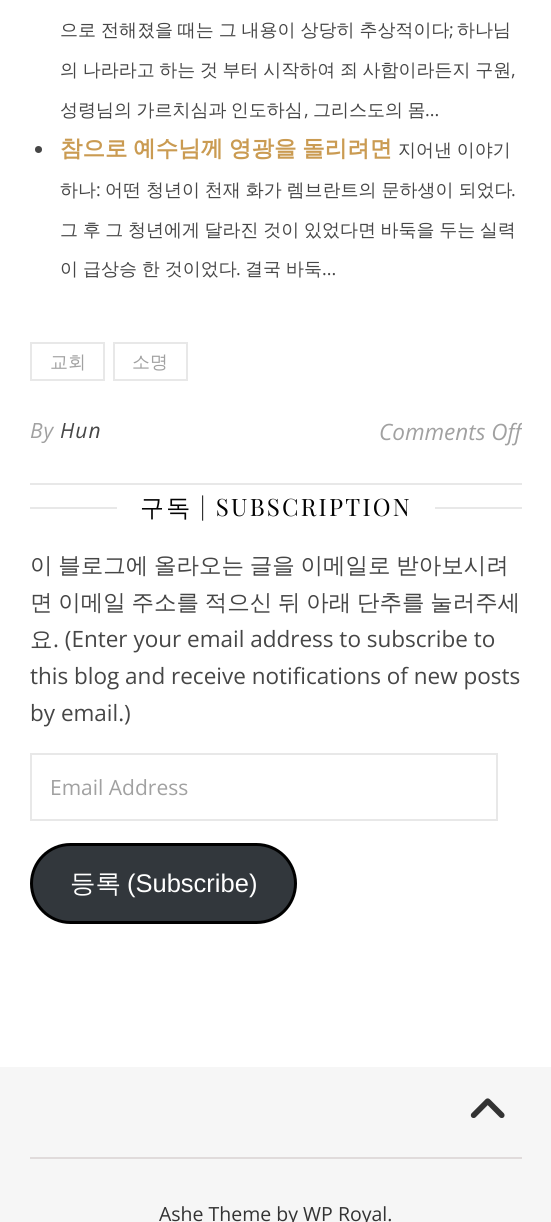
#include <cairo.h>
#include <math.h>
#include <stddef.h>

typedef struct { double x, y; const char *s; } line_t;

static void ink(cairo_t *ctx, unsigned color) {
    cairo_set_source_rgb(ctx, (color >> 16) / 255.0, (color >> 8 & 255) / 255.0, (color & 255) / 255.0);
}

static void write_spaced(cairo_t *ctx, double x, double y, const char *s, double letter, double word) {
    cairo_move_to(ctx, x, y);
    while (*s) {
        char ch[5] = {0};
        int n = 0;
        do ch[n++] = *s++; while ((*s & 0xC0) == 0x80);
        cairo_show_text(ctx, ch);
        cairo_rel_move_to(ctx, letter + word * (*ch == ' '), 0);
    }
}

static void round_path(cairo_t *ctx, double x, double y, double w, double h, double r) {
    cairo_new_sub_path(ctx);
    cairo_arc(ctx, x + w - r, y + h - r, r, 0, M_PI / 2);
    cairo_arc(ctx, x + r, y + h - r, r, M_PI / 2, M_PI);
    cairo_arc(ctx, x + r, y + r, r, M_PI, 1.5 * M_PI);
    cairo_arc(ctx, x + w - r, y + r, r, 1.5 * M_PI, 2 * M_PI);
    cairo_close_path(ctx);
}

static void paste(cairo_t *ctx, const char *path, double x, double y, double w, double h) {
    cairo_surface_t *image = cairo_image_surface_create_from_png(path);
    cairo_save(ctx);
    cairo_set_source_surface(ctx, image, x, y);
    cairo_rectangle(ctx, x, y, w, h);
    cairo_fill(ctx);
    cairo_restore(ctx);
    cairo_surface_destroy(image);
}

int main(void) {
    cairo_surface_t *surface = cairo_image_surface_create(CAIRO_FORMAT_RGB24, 551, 1222);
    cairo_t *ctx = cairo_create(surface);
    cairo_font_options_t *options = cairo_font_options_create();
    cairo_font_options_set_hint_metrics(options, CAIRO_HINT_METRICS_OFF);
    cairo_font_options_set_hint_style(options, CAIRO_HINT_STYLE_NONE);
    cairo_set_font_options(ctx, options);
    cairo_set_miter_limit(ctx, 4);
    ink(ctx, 0xFFFFFF);
    cairo_paint(ctx);
    cairo_select_font_face(ctx, "WenQuanYi Zen Hei Medium", CAIRO_FONT_SLANT_NORMAL, CAIRO_FONT_WEIGHT_NORMAL);
    cairo_set_font_size(ctx, 18);
    ink(ctx, 0x464646);
    write_spaced(ctx, 60, 36, "으로 전해졌을 때는 그 내용이 상당히 추상적이다", 0, -0.5);
    cairo_select_font_face(ctx, "Open Sans", CAIRO_FONT_SLANT_NORMAL, CAIRO_FONT_WEIGHT_NORMAL);
    cairo_move_to(ctx, 449, 36);
    cairo_show_text(ctx, ";");
    cairo_select_font_face(ctx, "WenQuanYi Zen Hei Medium", CAIRO_FONT_SLANT_NORMAL, CAIRO_FONT_WEIGHT_NORMAL);
    cairo_move_to(ctx, 457, 36);
    cairo_show_text(ctx, "하나님");
    write_spaced(ctx, 60, 76, "의 나라라고 하는 것 부터 시작하여 죄 사함이라든지 구원", 0, -0.75);
    cairo_select_font_face(ctx, "Open Sans", CAIRO_FONT_SLANT_NORMAL, CAIRO_FONT_WEIGHT_NORMAL);
    cairo_move_to(ctx, 511, 76);
    cairo_show_text(ctx, ",");
    cairo_select_font_face(ctx, "WenQuanYi Zen Hei Medium", CAIRO_FONT_SLANT_NORMAL, CAIRO_FONT_WEIGHT_NORMAL);
    write_spaced(ctx, 60, 116, "성령님의 가르치심과 인도하심", 0, -1);
    cairo_select_font_face(ctx, "Open Sans", CAIRO_FONT_SLANT_NORMAL, CAIRO_FONT_WEIGHT_NORMAL);
    cairo_move_to(ctx, 304, 116);
    cairo_show_text(ctx, ",");
    cairo_select_font_face(ctx, "WenQuanYi Zen Hei Medium", CAIRO_FONT_SLANT_NORMAL, CAIRO_FONT_WEIGHT_NORMAL);
    write_spaced(ctx, 313, 116, "그리스도의 몸", 0, -1);
    cairo_select_font_face(ctx, "Open Sans", CAIRO_FONT_SLANT_NORMAL, CAIRO_FONT_WEIGHT_NORMAL);
    cairo_move_to(ctx, 425, 116);
    cairo_show_text(ctx, "...");
    cairo_new_path(ctx);
    cairo_arc(ctx, 38.5, 149.5, 3.5, 0, 2 * M_PI);
    cairo_fill(ctx);
    cairo_select_font_face(ctx, "WenQuanYi Zen Hei", CAIRO_FONT_SLANT_NORMAL, CAIRO_FONT_WEIGHT_BOLD);
    cairo_set_font_size(ctx, 22.5);
    ink(ctx, 0xCA9B52);
    write_spaced(ctx, 60, 156, "참으로 예수님께 영광을 돌리려면", 0, -1);
    cairo_select_font_face(ctx, "WenQuanYi Zen Hei Medium", CAIRO_FONT_SLANT_NORMAL, CAIRO_FONT_WEIGHT_NORMAL);
    cairo_set_font_size(ctx, 18);
    ink(ctx, 0x464646);
    write_spaced(ctx, 398, 156, "지어낸 이야기", 0, -0.75);
    cairo_move_to(ctx, 60, 196);
    cairo_show_text(ctx, "하나");
    cairo_select_font_face(ctx, "Open Sans", CAIRO_FONT_SLANT_NORMAL, CAIRO_FONT_WEIGHT_NORMAL);
    cairo_move_to(ctx, 96, 196);
    cairo_show_text(ctx, ":");
    cairo_select_font_face(ctx, "WenQuanYi Zen Hei Medium", CAIRO_FONT_SLANT_NORMAL, CAIRO_FONT_WEIGHT_NORMAL);
    write_spaced(ctx, 105, 196, "어떤 청년이 천재 화가 렘브란트의 문하생이 되었다", 0, -0.5);
    cairo_select_font_face(ctx, "Open Sans", CAIRO_FONT_SLANT_NORMAL, CAIRO_FONT_WEIGHT_NORMAL);
    cairo_move_to(ctx, 511, 196);
    cairo_show_text(ctx, ".");
    cairo_select_font_face(ctx, "WenQuanYi Zen Hei Medium", CAIRO_FONT_SLANT_NORMAL, CAIRO_FONT_WEIGHT_NORMAL);
    write_spaced(ctx, 60, 236, "그 후 그 청년에게 달라진 것이 있었다면 바둑을 두는 실력", 0, -0.75);
    write_spaced(ctx, 60, 275, "이 급상승 한 것이었다", 0, -0.5);
    cairo_select_font_face(ctx, "Open Sans", CAIRO_FONT_SLANT_NORMAL, CAIRO_FONT_WEIGHT_NORMAL);
    cairo_move_to(ctx, 236, 275);
    cairo_show_text(ctx, ".");
    cairo_select_font_face(ctx, "WenQuanYi Zen Hei Medium", CAIRO_FONT_SLANT_NORMAL, CAIRO_FONT_WEIGHT_NORMAL);
    write_spaced(ctx, 245, 275, "결국 바둑", 0, -0.5);
    cairo_select_font_face(ctx, "Open Sans", CAIRO_FONT_SLANT_NORMAL, CAIRO_FONT_WEIGHT_NORMAL);
    cairo_move_to(ctx, 322, 275);
    cairo_show_text(ctx, "...");
    ink(ctx, 0xE8E8E8);
    cairo_rectangle(ctx, 30, 483, 492, 2);
    cairo_fill(ctx);
    cairo_rectangle(ctx, 31, 343, 73, 37);
    cairo_stroke(ctx);
    cairo_select_font_face(ctx, "WenQuanYi Zen Hei Medium", CAIRO_FONT_SLANT_NORMAL, CAIRO_FONT_WEIGHT_NORMAL);
    ink(ctx, 0xA1A1A1);
    cairo_move_to(ctx, 50, 368);
    cairo_show_text(ctx, "교회");
    cairo_rectangle(ctx, 114, 343, 73, 37);
    ink(ctx, 0xE8E8E8);
    cairo_stroke(ctx);
    ink(ctx, 0xA1A1A1);
    cairo_move_to(ctx, 132, 368);
    cairo_show_text(ctx, "소명");
    cairo_select_font_face(ctx, "Open Sans", CAIRO_FONT_SLANT_ITALIC, CAIRO_FONT_WEIGHT_NORMAL);
    cairo_set_font_size(ctx, 21);
    write_spaced(ctx, 30, 438, "By", 1, 0);
    ink(ctx, 0x464646);
    write_spaced(ctx, 60, 438, "Hun", 1, 0);
    cairo_save(ctx);
    cairo_rectangle(ctx, 30, 311, 492, 172);
    cairo_clip(ctx);
    cairo_set_font_size(ctx, 22.5);
    ink(ctx, 0xA1A1A1);
    cairo_move_to(ctx, 379, 440);
    cairo_show_text(ctx, "Comments Off");
    cairo_restore(ctx);
    ink(ctx, 0xE8E8E8);
    cairo_rectangle(ctx, 30, 507, 87, 2);
    cairo_fill(ctx);
    cairo_select_font_face(ctx, "WenQuanYi Zen Hei Medium", CAIRO_FONT_SLANT_NORMAL, CAIRO_FONT_WEIGHT_NORMAL);
    cairo_set_font_size(ctx, 24);
    ink(ctx, 0x030303);
    write_spaced(ctx, 140, 516, "구독", 2.25, 0);
    cairo_select_font_face(ctx, "Playfair Display", CAIRO_FONT_SLANT_NORMAL, CAIRO_FONT_WEIGHT_NORMAL);
    write_spaced(ctx, 200, 516, "| SUBSCRIPTION", 2.25, 0);
    ink(ctx, 0xE8E8E8);
    cairo_rectangle(ctx, 435, 507, 87, 2);
    cairo_fill(ctx);
    cairo_select_font_face(ctx, "WenQuanYi Zen Hei Medium", CAIRO_FONT_SLANT_NORMAL, CAIRO_FONT_WEIGHT_NORMAL);
    cairo_set_font_size(ctx, 22.5);
    ink(ctx, 0x464646);
    write_spaced(ctx, 30, 573, "이 블로그에 올라오는 글을 이메일로 받아보시려", 0, -1);
    write_spaced(ctx, 30, 610, "면 이메일 주소를 적으신 뒤 아래 단추를 눌러주세", 0, -1);
    cairo_move_to(ctx, 30, 647);
    cairo_show_text(ctx, "요");
    cairo_select_font_face(ctx, "Open Sans", CAIRO_FONT_SLANT_NORMAL, CAIRO_FONT_WEIGHT_NORMAL);
    {
        static const line_t items[] = {
            {53, 647, ". (Enter your email address to subscribe to"},
            {30, 684, "this blog and receive notifications of new posts"},
            {30, 721, "by email.)"},
        };
        for (size_t i = 0; i < sizeof items / sizeof *items; i++) {
            cairo_move_to(ctx, items[i].x, items[i].y);
            cairo_show_text(ctx, items[i].s);
        }
    }
    cairo_rectangle(ctx, 31, 754, 466, 66);
    ink(ctx, 0xE8E8E8);
    cairo_stroke(ctx);
    cairo_set_font_size(ctx, 21);
    ink(ctx, 0xA1A1A1);
    cairo_move_to(ctx, 50, 795);
    cairo_show_text(ctx, "Email Address");
    ink(ctx, 0x32373C);
    round_path(ctx, 31.5, 844.5, 264, 78, 39);
    cairo_fill_preserve(ctx);
    ink(ctx, 0x000000);
    cairo_set_line_width(ctx, 3);
    cairo_stroke(ctx);
    cairo_select_font_face(ctx, "WenQuanYi Zen Hei Medium", CAIRO_FONT_SLANT_NORMAL, CAIRO_FONT_WEIGHT_NORMAL);
    cairo_set_font_size(ctx, 25.5);
    ink(ctx, 0xFFFFFF);
    cairo_move_to(ctx, 70, 892);
    cairo_show_text(ctx, "등록");
    cairo_select_font_face(ctx, "Liberation Sans", CAIRO_FONT_SLANT_NORMAL, CAIRO_FONT_WEIGHT_NORMAL);
    cairo_move_to(ctx, 127, 892);
    cairo_show_text(ctx, "(Subscribe)");
    ink(ctx, 0xF6F6F6);
    cairo_rectangle(ctx, 0, 1067, 551, 155);
    cairo_fill(ctx);
    paste(ctx, "media/1.png", 470, 1098, 35, 20);
    ink(ctx, 0xE0DBDB);
    cairo_rectangle(ctx, 30, 1157, 492, 2);
    cairo_fill(ctx);
    cairo_select_font_face(ctx, "Open Sans", CAIRO_FONT_SLANT_NORMAL, CAIRO_FONT_WEIGHT_NORMAL);
    cairo_set_font_size(ctx, 19.5);
    ink(ctx, 0x333333);
    cairo_move_to(ctx, 159, 1221);
    cairo_show_text(ctx, "Ashe Theme by WP Royal.");
    cairo_surface_write_to_png(surface, "image.png");
    cairo_font_options_destroy(options);
    cairo_destroy(ctx);
    cairo_surface_destroy(surface);
    return 0;
}
